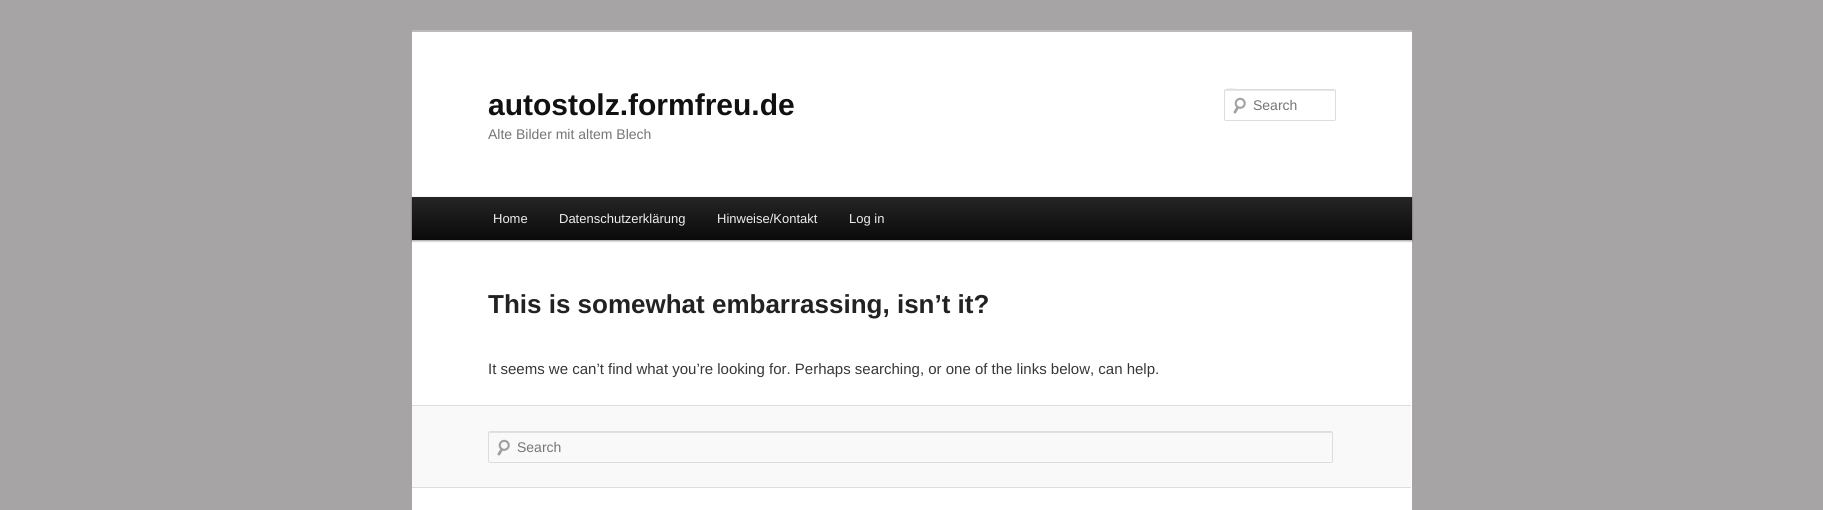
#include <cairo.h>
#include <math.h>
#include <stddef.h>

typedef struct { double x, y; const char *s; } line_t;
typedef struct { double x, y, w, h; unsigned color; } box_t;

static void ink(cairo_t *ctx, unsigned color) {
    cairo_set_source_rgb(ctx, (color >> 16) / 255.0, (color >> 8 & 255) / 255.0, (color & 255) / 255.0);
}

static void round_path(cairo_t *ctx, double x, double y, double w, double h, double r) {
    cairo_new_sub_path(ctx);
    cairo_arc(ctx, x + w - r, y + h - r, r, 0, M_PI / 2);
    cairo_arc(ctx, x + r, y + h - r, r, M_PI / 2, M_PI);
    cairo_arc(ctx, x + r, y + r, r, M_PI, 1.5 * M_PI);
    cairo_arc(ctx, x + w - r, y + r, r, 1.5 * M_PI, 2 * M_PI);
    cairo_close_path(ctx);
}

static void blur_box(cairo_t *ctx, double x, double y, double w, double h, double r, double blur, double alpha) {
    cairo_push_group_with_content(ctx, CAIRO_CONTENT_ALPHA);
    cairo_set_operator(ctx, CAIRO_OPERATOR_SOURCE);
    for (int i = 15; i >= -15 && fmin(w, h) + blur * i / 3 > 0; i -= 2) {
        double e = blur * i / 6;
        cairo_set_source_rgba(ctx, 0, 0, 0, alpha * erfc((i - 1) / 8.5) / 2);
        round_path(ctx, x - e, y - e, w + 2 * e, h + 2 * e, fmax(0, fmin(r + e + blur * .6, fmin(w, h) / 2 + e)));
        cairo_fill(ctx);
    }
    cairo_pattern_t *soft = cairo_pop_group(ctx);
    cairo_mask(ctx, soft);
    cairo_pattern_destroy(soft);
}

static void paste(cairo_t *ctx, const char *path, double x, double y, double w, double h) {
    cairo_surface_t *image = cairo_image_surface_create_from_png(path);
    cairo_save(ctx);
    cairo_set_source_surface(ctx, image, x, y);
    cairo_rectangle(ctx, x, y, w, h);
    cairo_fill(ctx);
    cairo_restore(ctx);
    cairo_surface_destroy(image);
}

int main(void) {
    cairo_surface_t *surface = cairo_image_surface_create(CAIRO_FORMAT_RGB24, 1823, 510);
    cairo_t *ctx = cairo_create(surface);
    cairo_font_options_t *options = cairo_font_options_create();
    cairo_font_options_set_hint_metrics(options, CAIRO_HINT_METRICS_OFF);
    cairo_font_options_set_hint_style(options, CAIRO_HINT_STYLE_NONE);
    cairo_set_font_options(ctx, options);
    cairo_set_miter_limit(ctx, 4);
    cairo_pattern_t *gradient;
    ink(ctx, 0xA6A4A4);
    cairo_paint(ctx);
    ink(ctx, 0xFFFFFF);
    cairo_rectangle(ctx, 412, 32, 1000, 478);
    cairo_fill(ctx);
    ink(ctx, 0xBBBBBB);
    cairo_rectangle(ctx, 412, 30, 1000, 2);
    cairo_fill(ctx);
    cairo_select_font_face(ctx, "Liberation Sans", CAIRO_FONT_SLANT_NORMAL, CAIRO_FONT_WEIGHT_BOLD);
    cairo_set_font_size(ctx, 30);
    ink(ctx, 0x111111);
    cairo_move_to(ctx, 488, 115);
    cairo_show_text(ctx, "autostolz.formfreu.de");
    cairo_select_font_face(ctx, "Liberation Sans", CAIRO_FONT_SLANT_NORMAL, CAIRO_FONT_WEIGHT_NORMAL);
    cairo_set_font_size(ctx, 14);
    ink(ctx, 0x757575);
    cairo_move_to(ctx, 488, 139);
    cairo_show_text(ctx, "Alte Bilder mit altem Blech");
    paste(ctx, "media/1.png", 1233, 97, 13, 17);
    ink(ctx, 0xE6E6E6);
    cairo_new_path(ctx);
    cairo_move_to(ctx, 1226, 91);
    cairo_line_to(ctx, 1335, 91);
    cairo_line_to(ctx, 1335, 92);
    cairo_line_to(ctx, 1334, 90);
    cairo_line_to(ctx, 1244, 90);
    cairo_curve_to(ctx, 1240, 90, 1225, 85, 1225, 92);
    cairo_curve_to(ctx, 1225, 91, 1225, 91, 1226, 91);
    cairo_close_path(ctx);
    cairo_fill(ctx);
    round_path(ctx, 1224.5, 89.5, 111, 31, 1.5);
    ink(ctx, 0xDDDDDD);
    cairo_set_line_width(ctx, 1);
    cairo_stroke(ctx);
    ink(ctx, 0x757575);
    cairo_move_to(ctx, 1253, 110);
    cairo_show_text(ctx, "Search");
    ink(ctx, 0x000000);
    blur_box(ctx, 412, 198, 1000, 43, 0, 1, 0.4);
    gradient = cairo_pattern_create_linear(912, 197, 912, 240);
    cairo_pattern_add_color_stop_rgba(gradient, 0, 0.145, 0.145, 0.145, 1);
    cairo_pattern_add_color_stop_rgba(gradient, 1, 0.039, 0.039, 0.039, 1);
    cairo_set_source(ctx, gradient);
    cairo_pattern_destroy(gradient);
    cairo_rectangle(ctx, 412, 197, 1000, 43);
    cairo_fill(ctx);
    cairo_set_font_size(ctx, 13);
    ink(ctx, 0xEEEEEE);
    {
        static const line_t items[] = {
            {493, 223, "Home"},
            {559, 223, "Datenschutzerklärung"},
            {717, 223, "Hinweise/Kontakt"},
            {849, 223, "Log in"},
        };
        for (size_t i = 0; i < sizeof items / sizeof *items; i++) {
            cairo_move_to(ctx, items[i].x, items[i].y);
            cairo_show_text(ctx, items[i].s);
        }
    }
    cairo_select_font_face(ctx, "Liberation Sans", CAIRO_FONT_SLANT_NORMAL, CAIRO_FONT_WEIGHT_BOLD);
    cairo_set_font_size(ctx, 26);
    ink(ctx, 0x222222);
    cairo_move_to(ctx, 488, 313);
    cairo_show_text(ctx, "This is somewhat embarrassing, isn’t it?");
    cairo_select_font_face(ctx, "Liberation Sans", CAIRO_FONT_SLANT_NORMAL, CAIRO_FONT_WEIGHT_NORMAL);
    cairo_set_font_size(ctx, 15);
    ink(ctx, 0x373737);
    cairo_move_to(ctx, 488, 374);
    cairo_show_text(ctx, "It seems we can’t find what you’re looking for. Perhaps searching, or one of the links below, can help.");
    {
        static const box_t items[] = {
            {412, 406, 999, 81, 0xF9F9F9},
            {412, 405, 999, 1, 0xDDDDDD},
            {412, 487, 999, 1, 0xDDDDDD},
        };
        for (size_t i = 0; i < sizeof items / sizeof *items; i++) {
            ink(ctx, items[i].color);
            cairo_rectangle(ctx, items[i].x, items[i].y, items[i].w, items[i].h);
            cairo_fill(ctx);
        }
    }
    paste(ctx, "media/2.png", 497, 439, 13, 17);
    ink(ctx, 0xE0E0E0);
    cairo_new_path(ctx);
    cairo_move_to(ctx, 490, 433);
    cairo_line_to(ctx, 1331, 433);
    cairo_curve_to(ctx, 1332, 433, 1332, 433, 1332, 434);
    cairo_line_to(ctx, 1332, 433);
    cairo_line_to(ctx, 1331, 432);
    cairo_line_to(ctx, 490, 432);
    cairo_line_to(ctx, 489, 433);
    cairo_line_to(ctx, 489, 434);
    cairo_curve_to(ctx, 489, 433, 489, 433, 490, 433);
    cairo_close_path(ctx);
    cairo_fill(ctx);
    round_path(ctx, 488.5, 431.5, 844, 31, 1.5);
    ink(ctx, 0xDDDDDD);
    cairo_stroke(ctx);
    cairo_set_font_size(ctx, 14);
    ink(ctx, 0x757575);
    cairo_move_to(ctx, 517, 452);
    cairo_show_text(ctx, "Search");
    cairo_surface_write_to_png(surface, "image.png");
    cairo_font_options_destroy(options);
    cairo_destroy(ctx);
    cairo_surface_destroy(surface);
    return 0;
}
